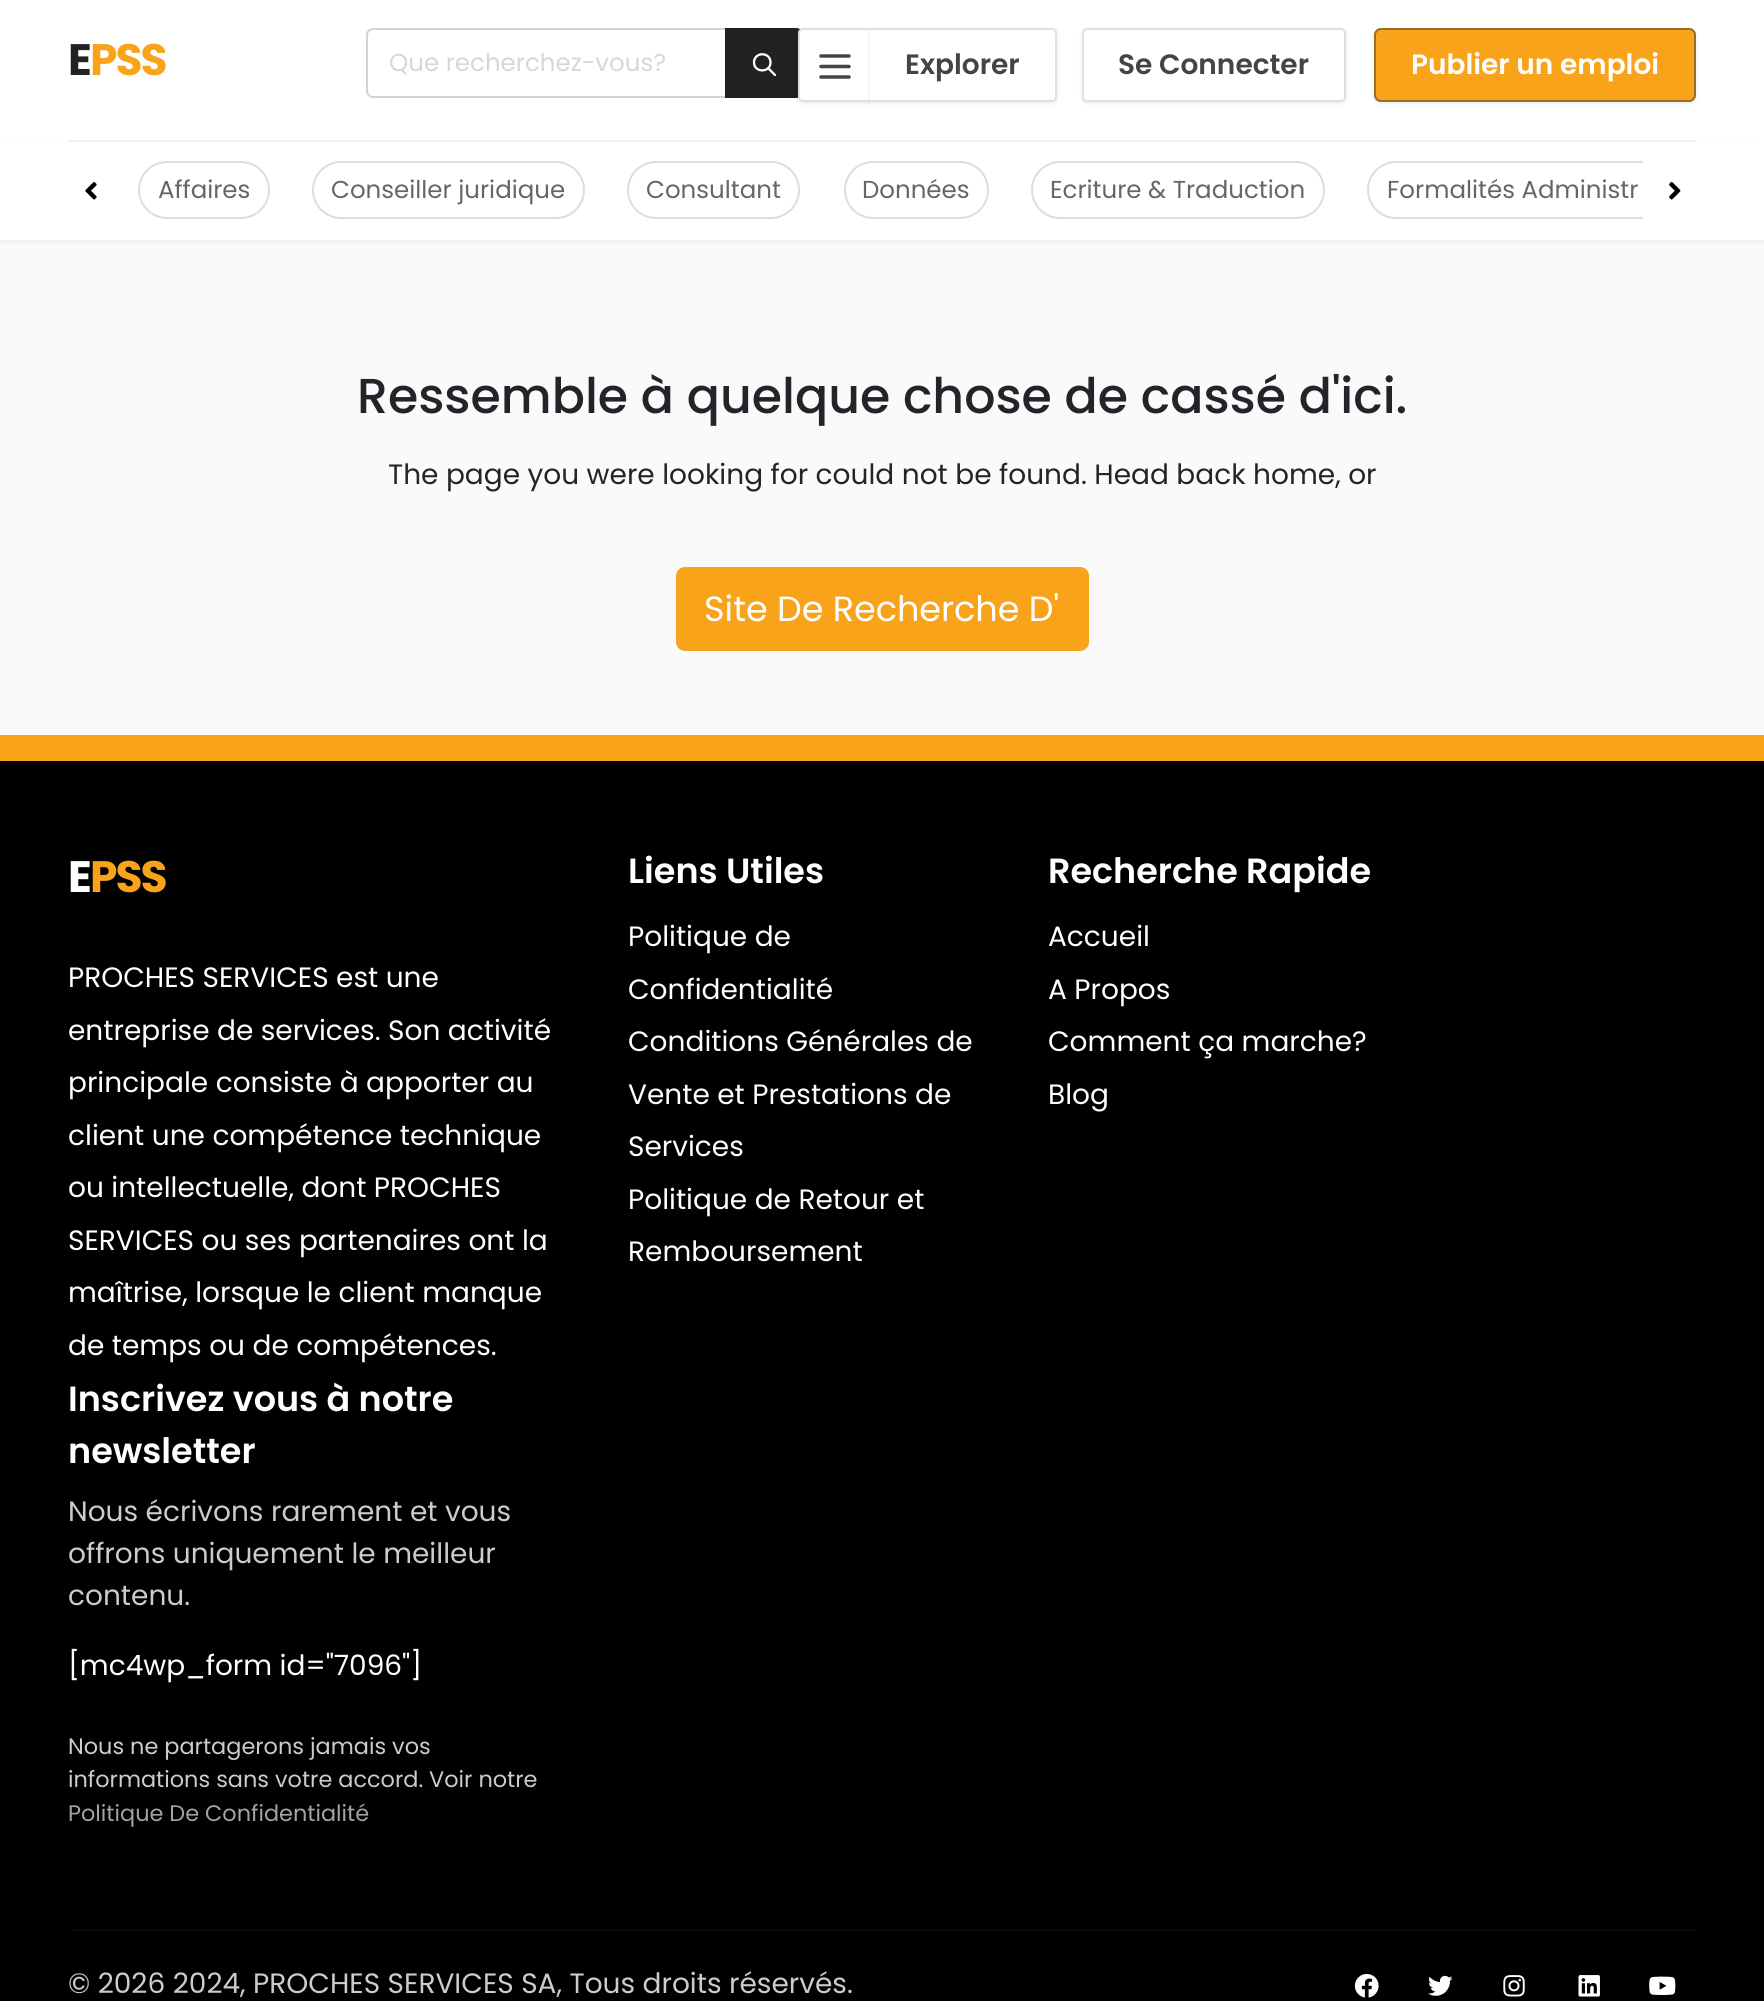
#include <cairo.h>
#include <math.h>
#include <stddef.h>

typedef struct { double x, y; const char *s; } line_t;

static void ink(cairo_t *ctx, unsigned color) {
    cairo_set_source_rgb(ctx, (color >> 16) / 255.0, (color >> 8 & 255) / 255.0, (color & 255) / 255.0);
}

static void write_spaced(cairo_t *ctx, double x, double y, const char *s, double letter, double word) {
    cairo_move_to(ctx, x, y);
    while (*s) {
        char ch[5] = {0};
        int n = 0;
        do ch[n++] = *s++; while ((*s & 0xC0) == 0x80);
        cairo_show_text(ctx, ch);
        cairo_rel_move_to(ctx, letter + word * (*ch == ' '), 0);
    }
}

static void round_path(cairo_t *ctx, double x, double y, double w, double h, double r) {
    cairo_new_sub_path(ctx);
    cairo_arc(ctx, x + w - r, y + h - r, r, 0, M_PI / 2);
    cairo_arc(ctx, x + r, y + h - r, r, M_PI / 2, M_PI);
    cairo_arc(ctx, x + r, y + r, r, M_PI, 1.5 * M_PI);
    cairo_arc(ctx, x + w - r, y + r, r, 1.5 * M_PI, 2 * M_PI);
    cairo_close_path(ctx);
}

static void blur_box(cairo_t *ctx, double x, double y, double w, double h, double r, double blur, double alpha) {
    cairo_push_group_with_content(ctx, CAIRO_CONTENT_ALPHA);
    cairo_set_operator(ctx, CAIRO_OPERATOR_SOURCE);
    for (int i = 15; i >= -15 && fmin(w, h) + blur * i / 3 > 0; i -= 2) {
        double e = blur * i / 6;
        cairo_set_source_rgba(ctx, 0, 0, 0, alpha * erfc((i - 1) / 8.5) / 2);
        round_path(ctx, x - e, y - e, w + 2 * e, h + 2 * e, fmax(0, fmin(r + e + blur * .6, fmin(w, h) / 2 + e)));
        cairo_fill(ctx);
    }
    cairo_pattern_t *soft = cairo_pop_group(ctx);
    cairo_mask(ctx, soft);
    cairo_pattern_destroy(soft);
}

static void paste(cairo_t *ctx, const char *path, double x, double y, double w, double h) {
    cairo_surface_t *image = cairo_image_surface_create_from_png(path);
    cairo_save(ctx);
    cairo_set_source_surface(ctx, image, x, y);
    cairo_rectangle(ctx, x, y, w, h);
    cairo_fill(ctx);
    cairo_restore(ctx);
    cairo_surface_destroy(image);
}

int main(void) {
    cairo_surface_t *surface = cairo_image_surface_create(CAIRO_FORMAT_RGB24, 1764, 2001);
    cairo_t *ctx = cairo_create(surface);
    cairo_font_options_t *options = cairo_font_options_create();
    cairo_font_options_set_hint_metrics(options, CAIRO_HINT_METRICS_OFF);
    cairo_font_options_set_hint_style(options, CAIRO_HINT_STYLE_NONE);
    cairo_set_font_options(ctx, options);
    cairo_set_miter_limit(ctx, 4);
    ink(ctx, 0xFAFAFB);
    cairo_paint(ctx);
    ink(ctx, 0xFFFFFF);
    cairo_rectangle(ctx, 0, 0, 1764, 142);
    cairo_fill(ctx);
    ink(ctx, 0xF2F2F2);
    cairo_rectangle(ctx, 68, 140, 1628, 2);
    cairo_fill(ctx);
    cairo_select_font_face(ctx, "Poppins", CAIRO_FONT_SLANT_NORMAL, CAIRO_FONT_WEIGHT_BOLD);
    cairo_set_font_size(ctx, 44);
    ink(ctx, 0x222222);
    write_spaced(ctx, 68, 75, "E", -2, 0);
    ink(ctx, 0xF9A31B);
    write_spaced(ctx, 90, 75, "PSS", -2, 0);
    round_path(ctx, 367, 29, 435, 68, 6);
    ink(ctx, 0xCED4DA);
    cairo_stroke(ctx);
    cairo_select_font_face(ctx, "Poppins", CAIRO_FONT_SLANT_NORMAL, CAIRO_FONT_WEIGHT_NORMAL);
    cairo_set_font_size(ctx, 24.5);
    ink(ctx, 0xD2D8DD);
    cairo_move_to(ctx, 389, 71);
    cairo_show_text(ctx, "Que recherchez-vous?");
    ink(ctx, 0x212121);
    cairo_new_path(ctx);
    cairo_move_to(ctx, 725, 28);
    cairo_line_to(ctx, 796, 28);
    cairo_curve_to(ctx, 800, 28, 803, 31, 803, 35);
    cairo_line_to(ctx, 803, 91);
    cairo_curve_to(ctx, 803, 95, 800, 98, 796, 98);
    cairo_line_to(ctx, 725, 98);
    cairo_close_path(ctx);
    cairo_fill(ctx);
    cairo_new_path(ctx);
    cairo_move_to(ctx, 775, 75);
    cairo_line_to(ctx, 768, 68);
    cairo_move_to(ctx, 770.5, 62.5);
    cairo_curve_to(ctx, 770.5, 73, 754, 73, 754, 62.5);
    cairo_curve_to(ctx, 754, 51.5, 770.5, 51.5, 770.5, 62.5);
    cairo_close_path(ctx);
    ink(ctx, 0xFFFFFF);
    cairo_set_line_width(ctx, 2.3);
    cairo_set_line_cap(ctx, CAIRO_LINE_CAP_ROUND);
    cairo_set_line_join(ctx, CAIRO_LINE_JOIN_ROUND);
    cairo_stroke(ctx);
    ink(ctx, 0x000000);
    blur_box(ctx, 798, 30, 259, 73, 5, 2, 0.1);
    ink(ctx, 0xFFFFFF);
    round_path(ctx, 799, 29, 257, 72, 4);
    cairo_fill_preserve(ctx);
    ink(ctx, 0xE0E0E0);
    cairo_set_line_width(ctx, 2);
    cairo_set_line_cap(ctx, CAIRO_LINE_CAP_BUTT);
    cairo_set_line_join(ctx, CAIRO_LINE_JOIN_MITER);
    cairo_stroke(ctx);
    ink(ctx, 0xF5F5F5);
    cairo_rectangle(ctx, 868, 30, 2, 70);
    cairo_fill(ctx);
    cairo_new_path(ctx);
    cairo_move_to(ctx, 821, 56);
    cairo_line_to(ctx, 849, 56);
    cairo_move_to(ctx, 821, 66.5);
    cairo_line_to(ctx, 849, 66.5);
    cairo_move_to(ctx, 821, 77);
    cairo_line_to(ctx, 849, 77);
    ink(ctx, 0x444444);
    cairo_set_line_width(ctx, 3.5);
    cairo_set_line_cap(ctx, CAIRO_LINE_CAP_ROUND);
    cairo_set_line_join(ctx, CAIRO_LINE_JOIN_ROUND);
    cairo_stroke(ctx);
    cairo_select_font_face(ctx, "Poppins SemiBold", CAIRO_FONT_SLANT_NORMAL, CAIRO_FONT_WEIGHT_NORMAL);
    cairo_set_font_size(ctx, 28);
    cairo_move_to(ctx, 905, 74);
    cairo_show_text(ctx, "Explorer");
    ink(ctx, 0x000000);
    blur_box(ctx, 1082, 30, 264, 73, 5, 2, 0.1);
    ink(ctx, 0xFFFFFF);
    round_path(ctx, 1083, 29, 262, 72, 4);
    cairo_fill_preserve(ctx);
    ink(ctx, 0xE0E0E0);
    cairo_set_line_width(ctx, 2);
    cairo_set_line_cap(ctx, CAIRO_LINE_CAP_BUTT);
    cairo_set_line_join(ctx, CAIRO_LINE_JOIN_MITER);
    cairo_stroke(ctx);
    ink(ctx, 0x444444);
    cairo_move_to(ctx, 1118, 74);
    cairo_show_text(ctx, "Se Connecter");
    ink(ctx, 0x000000);
    blur_box(ctx, 1374, 30, 322, 73, 7, 2, 0.1);
    ink(ctx, 0xF9A31B);
    round_path(ctx, 1374, 28, 322, 74, 7);
    cairo_fill(ctx);
    round_path(ctx, 1375, 29, 320, 72, 6);
    cairo_set_source_rgba(ctx, 0.212, 0.212, 0.212, 0.49);
    cairo_stroke(ctx);
    ink(ctx, 0xFFFFFF);
    cairo_move_to(ctx, 1411, 74);
    cairo_show_text(ctx, "Publier un emploi");
    ink(ctx, 0x000000);
    blur_box(ctx, 0, 144, 1764, 99, 0, 2, 0.05);
    ink(ctx, 0xFFFFFF);
    cairo_rectangle(ctx, 0, 142, 1764, 98);
    cairo_fill(ctx);
    ink(ctx, 0xF2F2F2);
    cairo_rectangle(ctx, 0, 240, 1764, 2);
    cairo_fill(ctx);
    round_path(ctx, 139, 162, 130, 56, 28);
    ink(ctx, 0xDDDDDD);
    cairo_stroke(ctx);
    cairo_select_font_face(ctx, "Poppins", CAIRO_FONT_SLANT_NORMAL, CAIRO_FONT_WEIGHT_NORMAL);
    cairo_set_font_size(ctx, 24.5);
    ink(ctx, 0x666666);
    cairo_move_to(ctx, 158, 198);
    cairo_show_text(ctx, "Affaires");
    round_path(ctx, 313, 162, 271, 56, 28);
    ink(ctx, 0xDDDDDD);
    cairo_stroke(ctx);
    ink(ctx, 0x666666);
    cairo_move_to(ctx, 331, 198);
    cairo_show_text(ctx, "Conseiller juridique");
    round_path(ctx, 628, 162, 171, 56, 28);
    ink(ctx, 0xDDDDDD);
    cairo_stroke(ctx);
    ink(ctx, 0x666666);
    cairo_move_to(ctx, 646, 198);
    cairo_show_text(ctx, "Consultant");
    round_path(ctx, 845, 162, 143, 56, 28);
    ink(ctx, 0xDDDDDD);
    cairo_stroke(ctx);
    ink(ctx, 0x666666);
    cairo_move_to(ctx, 862, 198);
    cairo_show_text(ctx, "Données");
    round_path(ctx, 1032, 162, 292, 56, 28);
    ink(ctx, 0xDDDDDD);
    cairo_stroke(ctx);
    ink(ctx, 0x666666);
    cairo_move_to(ctx, 1050, 198);
    cairo_show_text(ctx, "Ecriture & Traduction");
    cairo_save(ctx);
    cairo_rectangle(ctx, 121, 161, 1522, 58);
    cairo_clip(ctx);
    round_path(ctx, 1368, 162, 362, 56, 28);
    ink(ctx, 0xDDDDDD);
    cairo_stroke(ctx);
    cairo_restore(ctx);
    cairo_move_to(ctx, 1387, 198);
    cairo_show_text(ctx, "Formalités Administr");
    paste(ctx, "media/1.png", 85, 182, 12, 18);
    paste(ctx, "media/2.png", 1669, 182, 12, 18);
    cairo_select_font_face(ctx, "Poppins Medium", CAIRO_FONT_SLANT_NORMAL, CAIRO_FONT_WEIGHT_NORMAL);
    cairo_set_font_size(ctx, 49);
    ink(ctx, 0x212529);
    cairo_move_to(ctx, 357, 413);
    cairo_show_text(ctx, "Ressemble à quelque chose de cassé d'ici.");
    cairo_select_font_face(ctx, "Poppins", CAIRO_FONT_SLANT_NORMAL, CAIRO_FONT_WEIGHT_NORMAL);
    cairo_set_font_size(ctx, 28);
    cairo_move_to(ctx, 388, 484);
    cairo_show_text(ctx, "The page you were looking for could not be found. Head back home, or");
    ink(ctx, 0xF9A31B);
    round_path(ctx, 677, 568, 411, 82, 8);
    cairo_fill_preserve(ctx);
    cairo_stroke(ctx);
    cairo_set_font_size(ctx, 35);
    ink(ctx, 0xFFFFFF);
    cairo_move_to(ctx, 704, 621);
    cairo_show_text(ctx, "Site De Recherche D'");
    ink(ctx, 0xF9A31B);
    cairo_rectangle(ctx, 0, 735, 1764, 26);
    cairo_fill(ctx);
    ink(ctx, 0x000000);
    cairo_rectangle(ctx, 0, 761, 1764, 1240);
    cairo_fill(ctx);
    cairo_select_font_face(ctx, "Poppins", CAIRO_FONT_SLANT_NORMAL, CAIRO_FONT_WEIGHT_BOLD);
    cairo_set_font_size(ctx, 44);
    ink(ctx, 0xFFFFFF);
    write_spaced(ctx, 68, 892, "E", -2, 0);
    ink(ctx, 0xF9A31B);
    write_spaced(ctx, 90, 892, "PSS", -2, 0);
    cairo_select_font_face(ctx, "Poppins", CAIRO_FONT_SLANT_NORMAL, CAIRO_FONT_WEIGHT_NORMAL);
    cairo_set_font_size(ctx, 28);
    ink(ctx, 0xFFFFFF);
    {
        static const line_t items[] = {
            {68, 987, "PROCHES SERVICES est une"},
            {68, 1040, "entreprise de services. Son activité"},
            {68, 1092, "principale consiste à apporter au"},
            {68, 1145, "client une compétence technique"},
            {68, 1197, "ou intellectuelle, dont PROCHES"},
            {68, 1250, "SERVICES ou ses partenaires ont la"},
            {68, 1302, "maîtrise, lorsque le client manque"},
            {68, 1355, "de temps ou de compétences."},
        };
        for (size_t i = 0; i < sizeof items / sizeof *items; i++) {
            cairo_move_to(ctx, items[i].x, items[i].y);
            cairo_show_text(ctx, items[i].s);
        }
    }
    cairo_select_font_face(ctx, "Poppins SemiBold", CAIRO_FONT_SLANT_NORMAL, CAIRO_FONT_WEIGHT_NORMAL);
    cairo_set_font_size(ctx, 35);
    cairo_move_to(ctx, 628, 883);
    cairo_show_text(ctx, "Liens Utiles");
    cairo_select_font_face(ctx, "Poppins", CAIRO_FONT_SLANT_NORMAL, CAIRO_FONT_WEIGHT_NORMAL);
    cairo_set_font_size(ctx, 28);
    {
        static const line_t items[] = {
            {628, 946, "Politique de"},
            {628, 999, "Confidentialité"},
            {628, 1051, "Conditions Générales de"},
            {628, 1104, "Vente et Prestations de"},
            {628, 1156, "Services"},
            {628, 1209, "Politique de Retour et"},
            {628, 1261, "Remboursement"},
        };
        for (size_t i = 0; i < sizeof items / sizeof *items; i++) {
            cairo_move_to(ctx, items[i].x, items[i].y);
            cairo_show_text(ctx, items[i].s);
        }
    }
    cairo_select_font_face(ctx, "Poppins SemiBold", CAIRO_FONT_SLANT_NORMAL, CAIRO_FONT_WEIGHT_NORMAL);
    cairo_set_font_size(ctx, 35);
    cairo_move_to(ctx, 1048, 883);
    cairo_show_text(ctx, "Recherche Rapide");
    cairo_select_font_face(ctx, "Poppins", CAIRO_FONT_SLANT_NORMAL, CAIRO_FONT_WEIGHT_NORMAL);
    cairo_set_font_size(ctx, 28);
    {
        static const line_t items[] = {
            {1048, 946, "Accueil"},
            {1048, 999, "A Propos"},
            {1048, 1051, "Comment ça marche?"},
            {1048, 1104, "Blog"},
        };
        for (size_t i = 0; i < sizeof items / sizeof *items; i++) {
            cairo_move_to(ctx, items[i].x, items[i].y);
            cairo_show_text(ctx, items[i].s);
        }
    }
    cairo_select_font_face(ctx, "Poppins SemiBold", CAIRO_FONT_SLANT_NORMAL, CAIRO_FONT_WEIGHT_NORMAL);
    cairo_set_font_size(ctx, 35);
    cairo_move_to(ctx, 68, 1411);
    cairo_show_text(ctx, "Inscrivez vous à notre");
    cairo_move_to(ctx, 68, 1463);
    cairo_show_text(ctx, "newsletter");
    cairo_select_font_face(ctx, "Poppins", CAIRO_FONT_SLANT_NORMAL, CAIRO_FONT_WEIGHT_NORMAL);
    cairo_set_font_size(ctx, 28);
    ink(ctx, 0xCCCCCC);
    {
        static const line_t items[] = {
            {68, 1521, "Nous écrivons rarement et vous"},
            {68, 1563, "offrons uniquement le meilleur"},
            {68, 1605, "contenu."},
        };
        for (size_t i = 0; i < sizeof items / sizeof *items; i++) {
            cairo_move_to(ctx, items[i].x, items[i].y);
            cairo_show_text(ctx, items[i].s);
        }
    }
    ink(ctx, 0xFFFFFF);
    cairo_move_to(ctx, 68, 1675);
    cairo_show_text(ctx, "[mc4wp_form id=\"7096\"]");
    cairo_set_font_size(ctx, 22.4);
    ink(ctx, 0xCCCCCC);
    cairo_move_to(ctx, 68, 1754);
    cairo_show_text(ctx, "Nous ne partagerons jamais vos");
    cairo_move_to(ctx, 68, 1787);
    cairo_show_text(ctx, "informations sans votre accord. Voir notre");
    ink(ctx, 0xA3A3A3);
    cairo_move_to(ctx, 68, 1821);
    cairo_show_text(ctx, "Politique De Confidentialité");
    ink(ctx, 0x070707);
    cairo_rectangle(ctx, 68, 1929, 1628, 2);
    cairo_fill(ctx);
    cairo_set_font_size(ctx, 28);
    ink(ctx, 0xCCCCCC);
    cairo_move_to(ctx, 68, 1993);
    cairo_show_text(ctx, "© 2026 2024, PROCHES SERVICES SA, Tous droits réservés.");
    paste(ctx, "media/3.png", 1354, 1973, 25, 25);
    paste(ctx, "media/4.png", 1428, 1975, 25, 21);
    paste(ctx, "media/5.png", 1503, 1975, 22, 22);
    paste(ctx, "media/6.png", 1578, 1975, 22, 22);
    paste(ctx, "media/7.png", 1649, 1976, 27, 19);
    cairo_surface_write_to_png(surface, "image.png");
    cairo_font_options_destroy(options);
    cairo_destroy(ctx);
    cairo_surface_destroy(surface);
    return 0;
}
